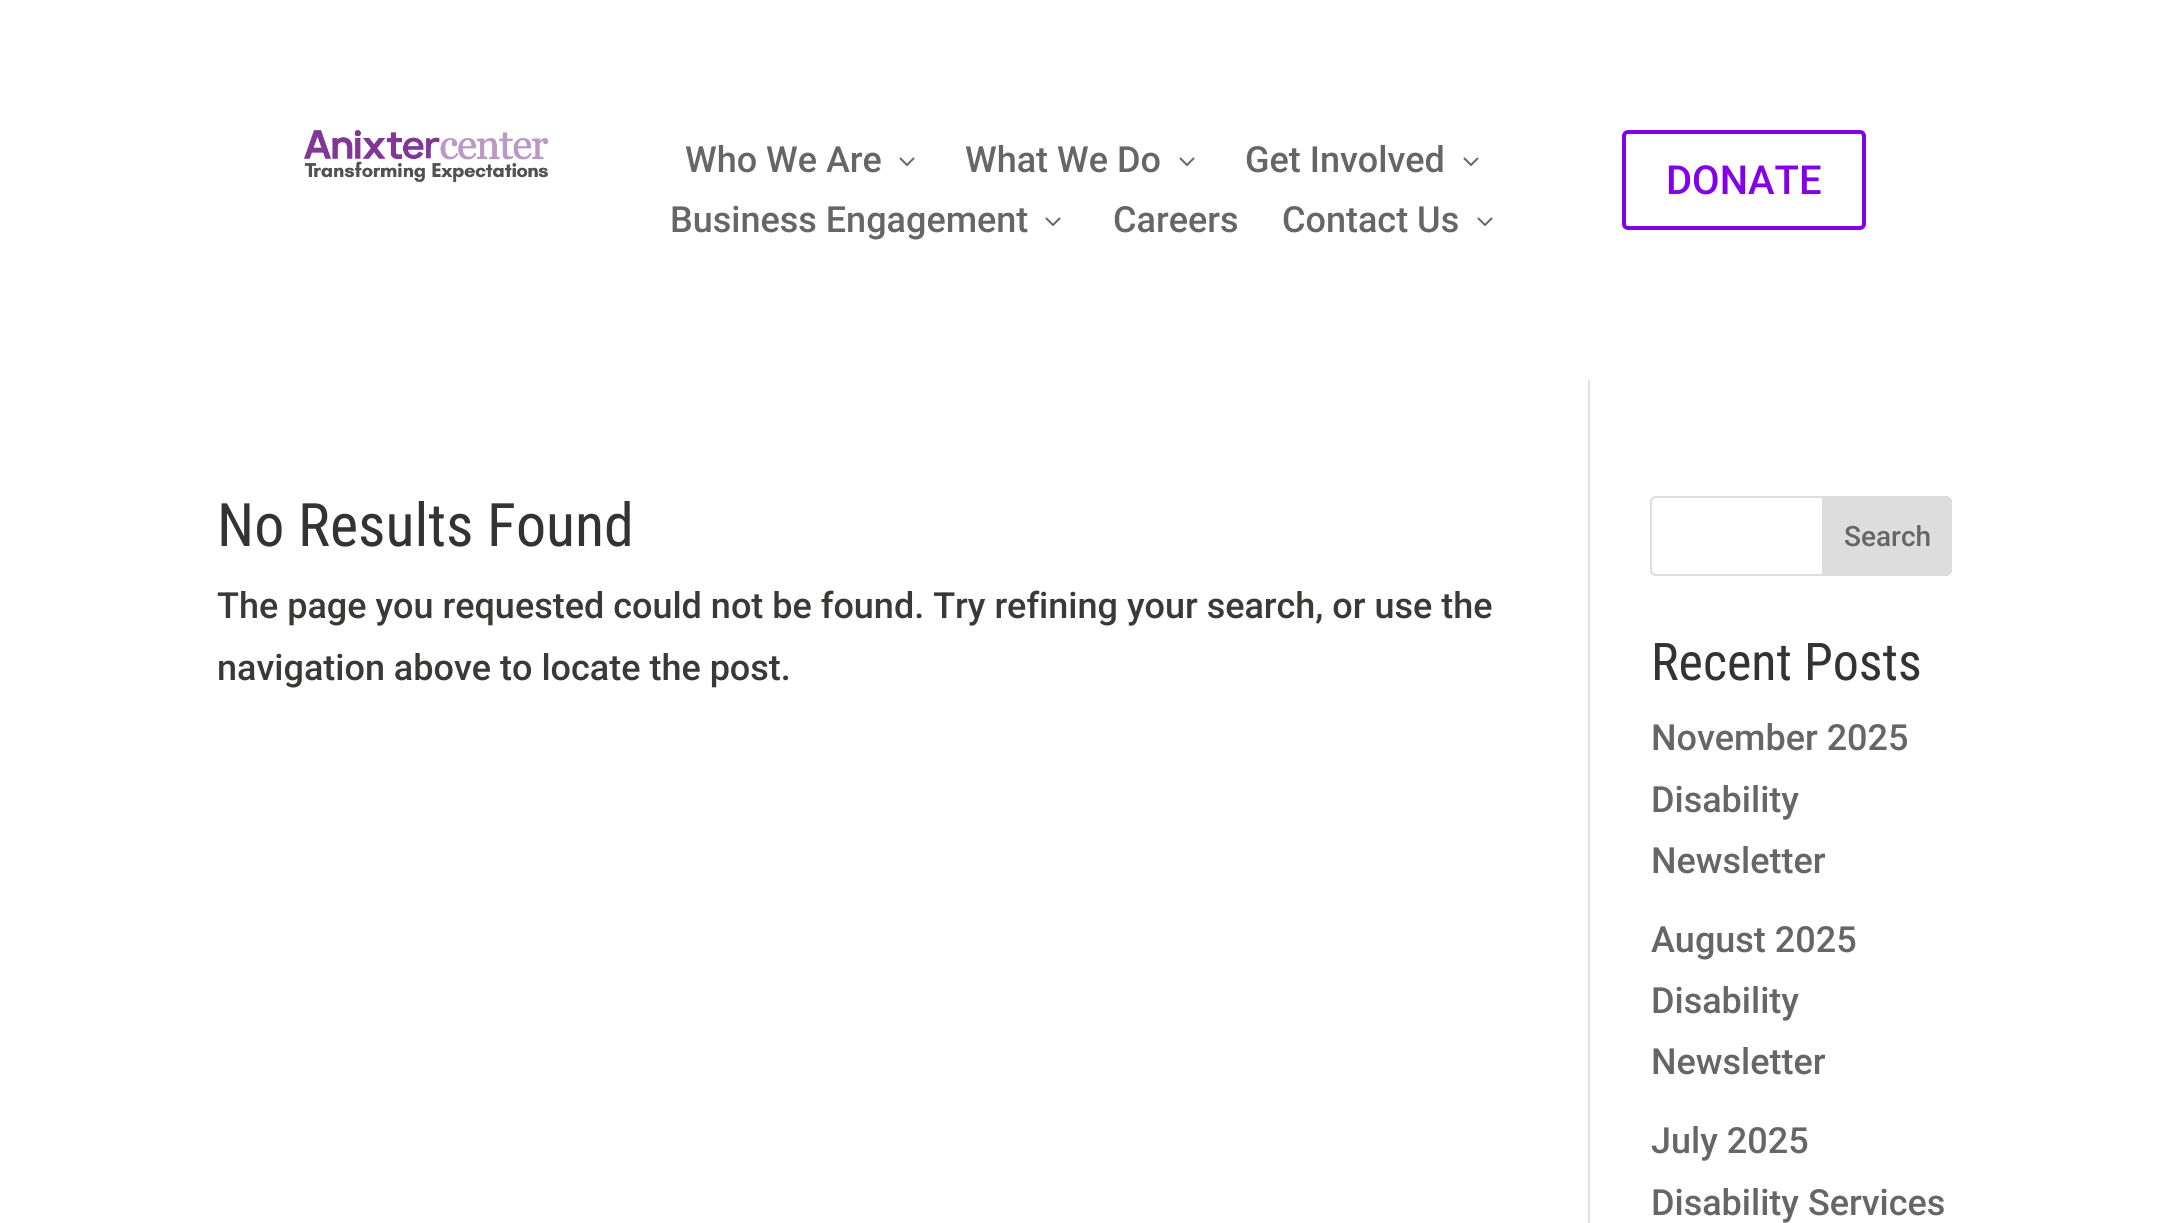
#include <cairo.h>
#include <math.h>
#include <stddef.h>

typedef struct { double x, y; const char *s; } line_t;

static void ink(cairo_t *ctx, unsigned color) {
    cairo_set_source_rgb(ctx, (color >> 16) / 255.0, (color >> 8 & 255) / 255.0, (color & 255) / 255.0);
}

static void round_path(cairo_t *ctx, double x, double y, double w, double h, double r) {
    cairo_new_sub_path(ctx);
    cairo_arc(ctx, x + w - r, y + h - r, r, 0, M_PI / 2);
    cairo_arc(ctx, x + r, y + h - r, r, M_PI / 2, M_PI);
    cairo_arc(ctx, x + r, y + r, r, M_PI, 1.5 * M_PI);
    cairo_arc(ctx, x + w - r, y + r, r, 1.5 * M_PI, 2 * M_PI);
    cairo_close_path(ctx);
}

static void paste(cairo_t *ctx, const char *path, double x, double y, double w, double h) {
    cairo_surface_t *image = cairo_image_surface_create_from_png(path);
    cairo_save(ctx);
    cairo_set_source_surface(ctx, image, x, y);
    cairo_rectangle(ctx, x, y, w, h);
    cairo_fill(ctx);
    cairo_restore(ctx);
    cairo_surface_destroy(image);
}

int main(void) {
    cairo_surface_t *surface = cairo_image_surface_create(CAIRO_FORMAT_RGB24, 2169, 1223);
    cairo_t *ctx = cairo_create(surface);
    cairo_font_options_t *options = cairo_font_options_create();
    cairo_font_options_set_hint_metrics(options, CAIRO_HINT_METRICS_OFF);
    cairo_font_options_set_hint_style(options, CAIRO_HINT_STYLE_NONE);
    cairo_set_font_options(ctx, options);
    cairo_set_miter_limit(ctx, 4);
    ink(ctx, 0xFFFFFF);
    cairo_paint(ctx);
    paste(ctx, "media/1.png", 304, 130, 244, 52);
    cairo_select_font_face(ctx, "Roboto Medium", CAIRO_FONT_SLANT_NORMAL, CAIRO_FONT_WEIGHT_NORMAL);
    cairo_set_font_size(ctx, 36);
    ink(ctx, 0x666666);
    cairo_move_to(ctx, 685, 172);
    cairo_show_text(ctx, "Who We Are");
    paste(ctx, "media/2.png", 899, 157, 16, 9);
    cairo_move_to(ctx, 965, 172);
    cairo_show_text(ctx, "What We Do");
    paste(ctx, "media/2.png", 1179, 157, 16, 9);
    cairo_move_to(ctx, 1245, 172);
    cairo_show_text(ctx, "Get Involved");
    paste(ctx, "media/2.png", 1463, 157, 16, 9);
    cairo_move_to(ctx, 670, 232);
    cairo_show_text(ctx, "Business Engagement");
    paste(ctx, "media/2.png", 1045, 217, 16, 9);
    cairo_move_to(ctx, 1113, 232);
    cairo_show_text(ctx, "Careers");
    cairo_move_to(ctx, 1282, 232);
    cairo_show_text(ctx, "Contact Us");
    paste(ctx, "media/2.png", 1477, 217, 16, 9);
    round_path(ctx, 1624, 132, 240, 96, 4);
    ink(ctx, 0x8300E9);
    cairo_set_line_width(ctx, 4);
    cairo_stroke(ctx);
    cairo_set_font_size(ctx, 40);
    cairo_move_to(ctx, 1666, 194);
    cairo_show_text(ctx, "DONATE");
    ink(ctx, 0xE2E2E2);
    cairo_rectangle(ctx, 1588, 380, 2, 843);
    cairo_fill(ctx);
    cairo_select_font_face(ctx, "Roboto Condensed", CAIRO_FONT_SLANT_NORMAL, CAIRO_FONT_WEIGHT_NORMAL);
    cairo_set_font_size(ctx, 60);
    ink(ctx, 0x333333);
    cairo_move_to(ctx, 217, 546);
    cairo_show_text(ctx, "No Results Found");
    cairo_select_font_face(ctx, "Roboto Medium", CAIRO_FONT_SLANT_NORMAL, CAIRO_FONT_WEIGHT_NORMAL);
    cairo_set_font_size(ctx, 36);
    ink(ctx, 0x373A36);
    cairo_move_to(ctx, 217, 618);
    cairo_show_text(ctx, "The page you requested could not be found. Try refining your search, or use the");
    cairo_move_to(ctx, 217, 680);
    cairo_show_text(ctx, "navigation above to locate the post.");
    round_path(ctx, 1651, 497, 300, 78, 5);
    ink(ctx, 0xDDDDDD);
    cairo_set_line_width(ctx, 2);
    cairo_stroke(ctx);
    cairo_new_path(ctx);
    cairo_move_to(ctx, 1823, 497);
    cairo_line_to(ctx, 1946, 497);
    cairo_curve_to(ctx, 1949, 497, 1951, 499, 1951, 502);
    cairo_line_to(ctx, 1951, 570);
    cairo_curve_to(ctx, 1951, 573, 1949, 575, 1946, 575);
    cairo_line_to(ctx, 1823, 575);
    cairo_close_path(ctx);
    cairo_fill_preserve(ctx);
    cairo_stroke(ctx);
    cairo_set_font_size(ctx, 28);
    ink(ctx, 0x666666);
    cairo_move_to(ctx, 1844, 546);
    cairo_show_text(ctx, "Search");
    cairo_select_font_face(ctx, "Roboto Condensed", CAIRO_FONT_SLANT_NORMAL, CAIRO_FONT_WEIGHT_NORMAL);
    cairo_set_font_size(ctx, 52);
    ink(ctx, 0x333333);
    cairo_move_to(ctx, 1651, 680);
    cairo_show_text(ctx, "Recent Posts");
    cairo_select_font_face(ctx, "Roboto Medium", CAIRO_FONT_SLANT_NORMAL, CAIRO_FONT_WEIGHT_NORMAL);
    cairo_set_font_size(ctx, 36);
    ink(ctx, 0x666666);
    {
        static const line_t items[] = {
            {1651, 750, "November 2025"},
            {1651, 812, "Disability"},
            {1651, 873, "Newsletter"},
            {1651, 952, "August 2025"},
            {1651, 1013, "Disability"},
            {1651, 1074, "Newsletter"},
            {1651, 1153, "July 2025"},
            {1651, 1215, "Disability Services"},
        };
        for (size_t i = 0; i < sizeof items / sizeof *items; i++) {
            cairo_move_to(ctx, items[i].x, items[i].y);
            cairo_show_text(ctx, items[i].s);
        }
    }
    cairo_surface_write_to_png(surface, "image.png");
    cairo_font_options_destroy(options);
    cairo_destroy(ctx);
    cairo_surface_destroy(surface);
    return 0;
}
